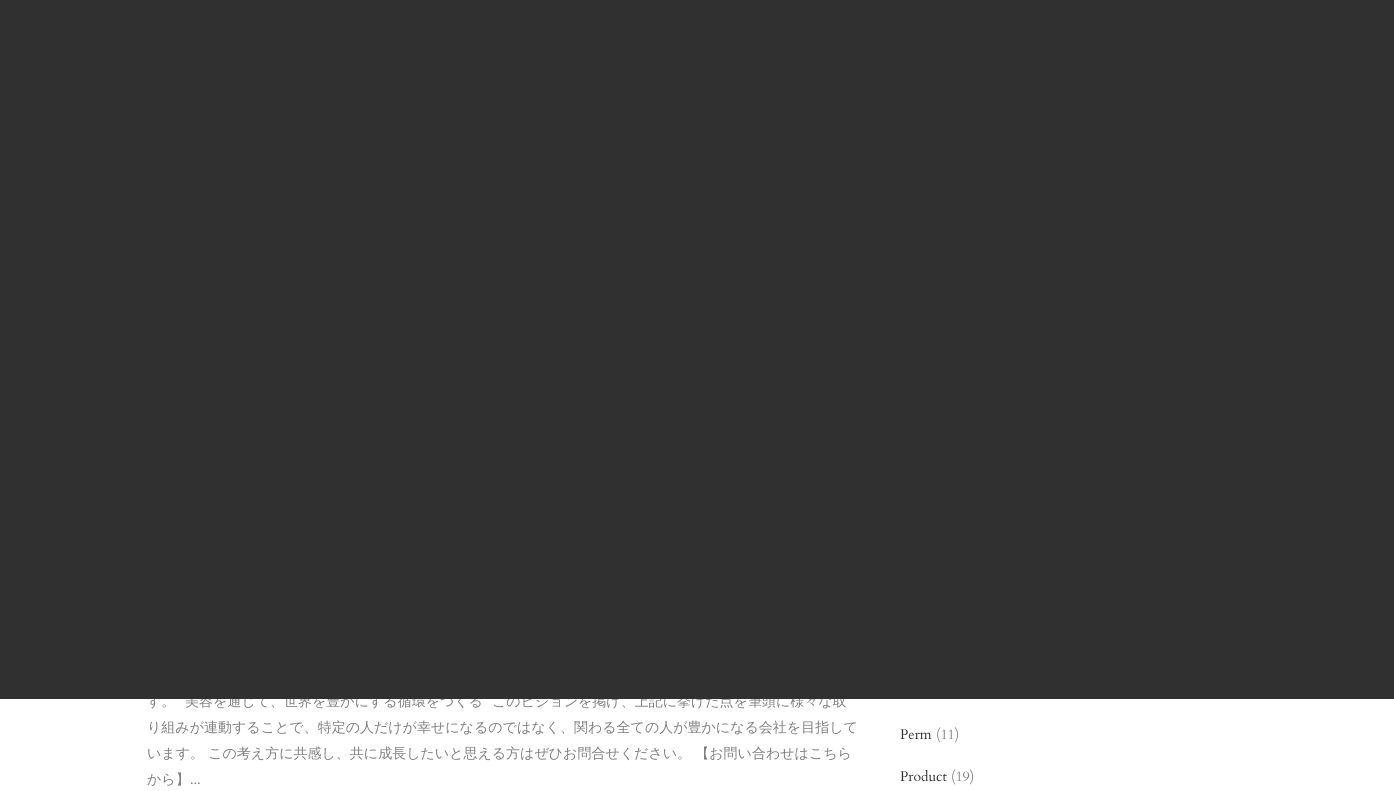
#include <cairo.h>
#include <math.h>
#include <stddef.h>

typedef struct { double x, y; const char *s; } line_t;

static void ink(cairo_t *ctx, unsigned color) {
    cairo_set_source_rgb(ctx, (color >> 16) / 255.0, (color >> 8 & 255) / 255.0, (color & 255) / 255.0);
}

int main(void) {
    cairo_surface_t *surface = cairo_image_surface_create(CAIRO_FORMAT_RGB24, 1394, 791);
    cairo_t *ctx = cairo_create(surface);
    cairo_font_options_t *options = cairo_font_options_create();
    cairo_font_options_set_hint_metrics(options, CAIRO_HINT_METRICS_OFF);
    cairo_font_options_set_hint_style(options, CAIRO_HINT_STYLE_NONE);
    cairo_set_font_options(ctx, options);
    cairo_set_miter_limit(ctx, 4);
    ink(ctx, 0xFFFFFF);
    cairo_paint(ctx);
    cairo_select_font_face(ctx, "WenQuanYi Zen Hei Medium", CAIRO_FONT_SLANT_NORMAL, CAIRO_FONT_WEIGHT_NORMAL);
    cairo_set_font_size(ctx, 14);
    ink(ctx, 0x808080);
    {
        static const line_t items[] = {
            {147, 706, "す。"},
            {185, 706, "美容を通じて、世界を豊かにする循環をつくる"},
            {492, 706, "このビジョンを掲げ、上記に挙げた点を筆頭に様々な取"},
        };
        for (size_t i = 0; i < sizeof items / sizeof *items; i++) {
            cairo_move_to(ctx, items[i].x, items[i].y);
            cairo_show_text(ctx, items[i].s);
        }
    }
    ink(ctx, 0x303030);
    cairo_rectangle(ctx, 0, 0, 1394, 699);
    cairo_fill(ctx);
    ink(ctx, 0x808080);
    {
        static const line_t items[] = {
            {147, 732, "り組みが連動することで、特定の人だけが幸せになるのではなく、関わる全ての人が豊かになる会社を目指して"},
            {147, 758, "います。 この考え方に共感し、共に成長したいと思える方はぜひお問合せください。 【お問い合わせはこちら"},
            {147, 784, "から】"},
        };
        for (size_t i = 0; i < sizeof items / sizeof *items; i++) {
            cairo_move_to(ctx, items[i].x, items[i].y);
            cairo_show_text(ctx, items[i].s);
        }
    }
    cairo_select_font_face(ctx, "Cardo", CAIRO_FONT_SLANT_NORMAL, CAIRO_FONT_WEIGHT_NORMAL);
    cairo_move_to(ctx, 190, 784);
    cairo_show_text(ctx, "...");
    ink(ctx, 0x303030);
    cairo_move_to(ctx, 900, 739);
    cairo_show_text(ctx, "Perm");
    ink(ctx, 0x808080);
    cairo_move_to(ctx, 936, 739);
    cairo_show_text(ctx, "(11)");
    ink(ctx, 0x303030);
    cairo_move_to(ctx, 900, 781);
    cairo_show_text(ctx, "Product");
    ink(ctx, 0x808080);
    cairo_move_to(ctx, 951, 781);
    cairo_show_text(ctx, "(19)");
    cairo_surface_write_to_png(surface, "image.png");
    cairo_font_options_destroy(options);
    cairo_destroy(ctx);
    cairo_surface_destroy(surface);
    return 0;
}
